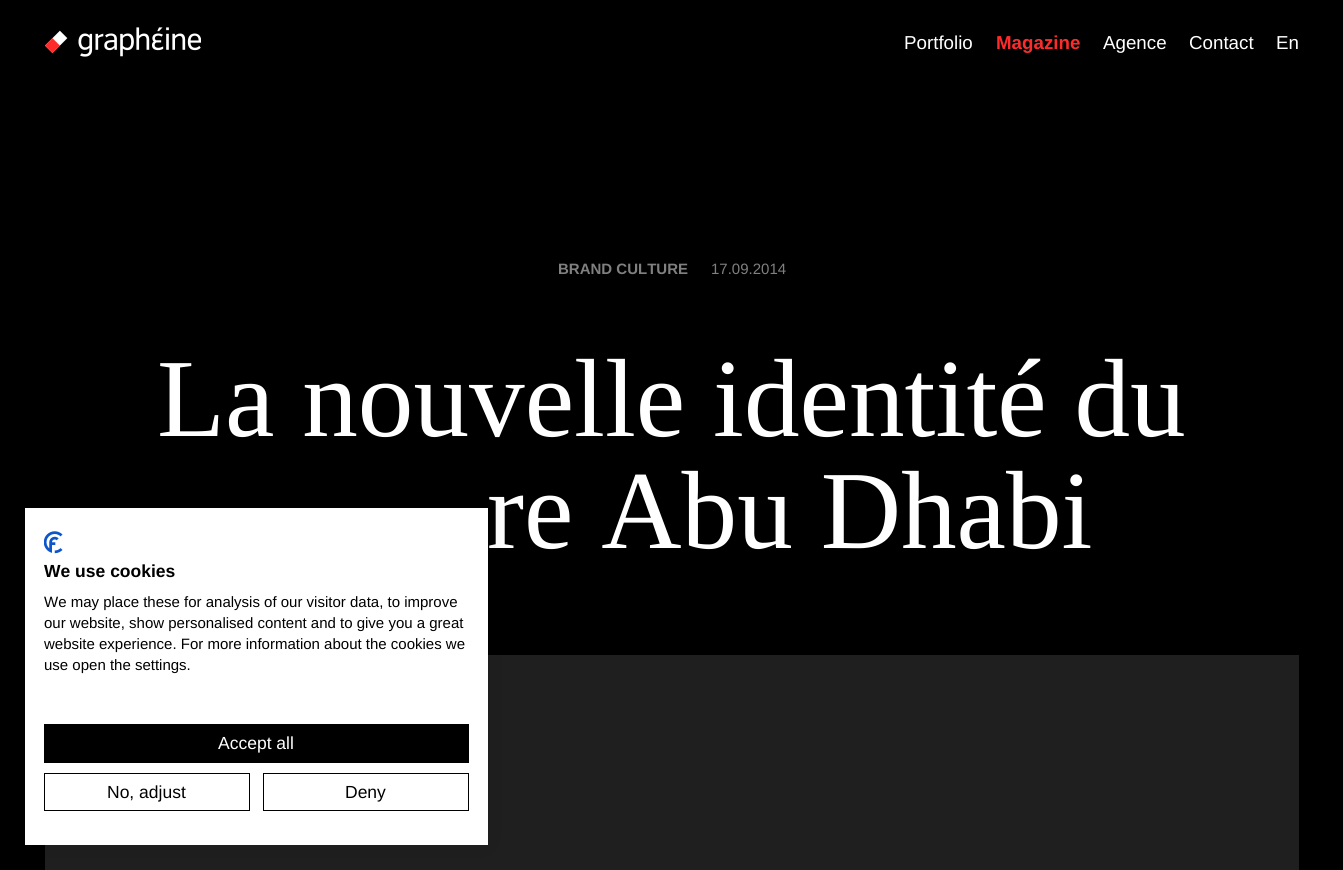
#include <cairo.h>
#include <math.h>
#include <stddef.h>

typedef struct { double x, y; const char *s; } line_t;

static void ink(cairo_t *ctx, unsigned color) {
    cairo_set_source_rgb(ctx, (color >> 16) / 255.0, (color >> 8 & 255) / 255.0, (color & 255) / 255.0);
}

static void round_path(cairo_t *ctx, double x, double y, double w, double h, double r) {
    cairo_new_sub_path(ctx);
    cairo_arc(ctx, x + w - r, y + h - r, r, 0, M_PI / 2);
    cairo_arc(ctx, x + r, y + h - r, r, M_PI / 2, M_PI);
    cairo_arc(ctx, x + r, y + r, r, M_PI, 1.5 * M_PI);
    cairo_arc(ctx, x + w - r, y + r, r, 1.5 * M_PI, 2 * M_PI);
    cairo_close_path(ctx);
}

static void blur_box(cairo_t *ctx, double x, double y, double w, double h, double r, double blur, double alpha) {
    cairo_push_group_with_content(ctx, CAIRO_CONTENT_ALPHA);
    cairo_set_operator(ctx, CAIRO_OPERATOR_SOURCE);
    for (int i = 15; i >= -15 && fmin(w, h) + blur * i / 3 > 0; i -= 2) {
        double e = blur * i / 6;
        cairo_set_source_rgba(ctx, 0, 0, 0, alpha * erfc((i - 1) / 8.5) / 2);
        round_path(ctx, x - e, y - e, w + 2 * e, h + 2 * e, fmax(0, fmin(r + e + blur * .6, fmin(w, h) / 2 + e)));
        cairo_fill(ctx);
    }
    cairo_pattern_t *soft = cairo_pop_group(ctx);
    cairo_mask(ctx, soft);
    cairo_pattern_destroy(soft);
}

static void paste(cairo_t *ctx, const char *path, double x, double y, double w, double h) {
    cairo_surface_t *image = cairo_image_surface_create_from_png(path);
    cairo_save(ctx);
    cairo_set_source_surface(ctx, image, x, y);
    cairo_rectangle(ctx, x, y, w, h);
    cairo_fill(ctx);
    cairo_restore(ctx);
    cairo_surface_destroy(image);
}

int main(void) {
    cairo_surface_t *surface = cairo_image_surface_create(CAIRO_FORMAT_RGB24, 1343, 870);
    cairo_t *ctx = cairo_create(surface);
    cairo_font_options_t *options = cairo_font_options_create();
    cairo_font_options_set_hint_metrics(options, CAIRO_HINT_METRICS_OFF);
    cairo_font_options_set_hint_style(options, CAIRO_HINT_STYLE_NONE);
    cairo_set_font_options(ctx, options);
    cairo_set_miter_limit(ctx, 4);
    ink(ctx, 0x000000);
    cairo_paint(ctx);
    paste(ctx, "media/1.png", 45, 27, 156, 30);
    cairo_select_font_face(ctx, "Liberation Sans", CAIRO_FONT_SLANT_NORMAL, CAIRO_FONT_WEIGHT_NORMAL);
    cairo_set_font_size(ctx, 18.75);
    ink(ctx, 0xFFFFFF);
    cairo_move_to(ctx, 904, 49);
    cairo_show_text(ctx, "Portfolio");
    cairo_select_font_face(ctx, "Liberation Sans", CAIRO_FONT_SLANT_NORMAL, CAIRO_FONT_WEIGHT_BOLD);
    ink(ctx, 0xFF2B2B);
    cairo_move_to(ctx, 996, 49);
    cairo_show_text(ctx, "Magazine");
    cairo_select_font_face(ctx, "Liberation Sans", CAIRO_FONT_SLANT_NORMAL, CAIRO_FONT_WEIGHT_NORMAL);
    ink(ctx, 0xFFFFFF);
    {
        static const line_t items[] = {
            {1103, 49, "Agence"},
            {1189, 49, "Contact"},
            {1276, 49, "En"},
        };
        for (size_t i = 0; i < sizeof items / sizeof *items; i++) {
            cairo_move_to(ctx, items[i].x, items[i].y);
            cairo_show_text(ctx, items[i].s);
        }
    }
    cairo_select_font_face(ctx, "Liberation Sans", CAIRO_FONT_SLANT_NORMAL, CAIRO_FONT_WEIGHT_BOLD);
    cairo_set_font_size(ctx, 15);
    ink(ctx, 0x808080);
    cairo_move_to(ctx, 558, 274);
    cairo_show_text(ctx, "BRAND CULTURE");
    cairo_select_font_face(ctx, "Liberation Sans", CAIRO_FONT_SLANT_NORMAL, CAIRO_FONT_WEIGHT_NORMAL);
    cairo_move_to(ctx, 711, 274);
    cairo_show_text(ctx, "17.09.2014");
    cairo_select_font_face(ctx, "Liberation Serif", CAIRO_FONT_SLANT_NORMAL, CAIRO_FONT_WEIGHT_NORMAL);
    cairo_set_font_size(ctx, 111.25);
    ink(ctx, 0xFFFFFF);
    cairo_move_to(ctx, 157, 436);
    cairo_show_text(ctx, "La nouvelle identité du");
    cairo_move_to(ctx, 487, 548);
    cairo_show_text(ctx, "re Abu Dhabi");
    ink(ctx, 0x1F1F1F);
    cairo_rectangle(ctx, 45, 655, 1254, 215);
    cairo_fill(ctx);
    ink(ctx, 0x000000);
    blur_box(ctx, 25, 508, 463, 337, 0, 15, 0.1);
    ink(ctx, 0xFFFFFF);
    cairo_rectangle(ctx, 25, 508, 463, 337);
    cairo_fill(ctx);
    paste(ctx, "media/2.png", 44, 531, 19, 23);
    cairo_select_font_face(ctx, "Liberation Sans", CAIRO_FONT_SLANT_NORMAL, CAIRO_FONT_WEIGHT_BOLD);
    cairo_set_font_size(ctx, 17.5);
    ink(ctx, 0x000000);
    cairo_move_to(ctx, 44, 577);
    cairo_show_text(ctx, "We use cookies");
    cairo_select_font_face(ctx, "Liberation Sans", CAIRO_FONT_SLANT_NORMAL, CAIRO_FONT_WEIGHT_NORMAL);
    cairo_set_font_size(ctx, 15);
    {
        static const line_t items[] = {
            {44, 607, "We may place these for analysis of our visitor data, to improve"},
            {44, 628, "our website, show personalised content and to give you a great"},
            {44, 649, "website experience. For more information about the cookies we"},
            {44, 670, "use open the settings."},
        };
        for (size_t i = 0; i < sizeof items / sizeof *items; i++) {
            cairo_move_to(ctx, items[i].x, items[i].y);
            cairo_show_text(ctx, items[i].s);
        }
    }
    cairo_rectangle(ctx, 44, 724, 425, 39);
    cairo_fill(ctx);
    cairo_set_font_size(ctx, 17.5);
    ink(ctx, 0xFFFFFF);
    cairo_move_to(ctx, 218, 749);
    cairo_show_text(ctx, "Accept all");
    cairo_rectangle(ctx, 44.5, 773.5, 205, 37);
    ink(ctx, 0x000000);
    cairo_set_line_width(ctx, 1);
    cairo_stroke(ctx);
    cairo_move_to(ctx, 107, 798);
    cairo_show_text(ctx, "No, adjust");
    cairo_rectangle(ctx, 263.5, 773.5, 205, 37);
    cairo_stroke(ctx);
    cairo_move_to(ctx, 345, 798);
    cairo_show_text(ctx, "Deny");
    cairo_surface_write_to_png(surface, "image.png");
    cairo_font_options_destroy(options);
    cairo_destroy(ctx);
    cairo_surface_destroy(surface);
    return 0;
}
